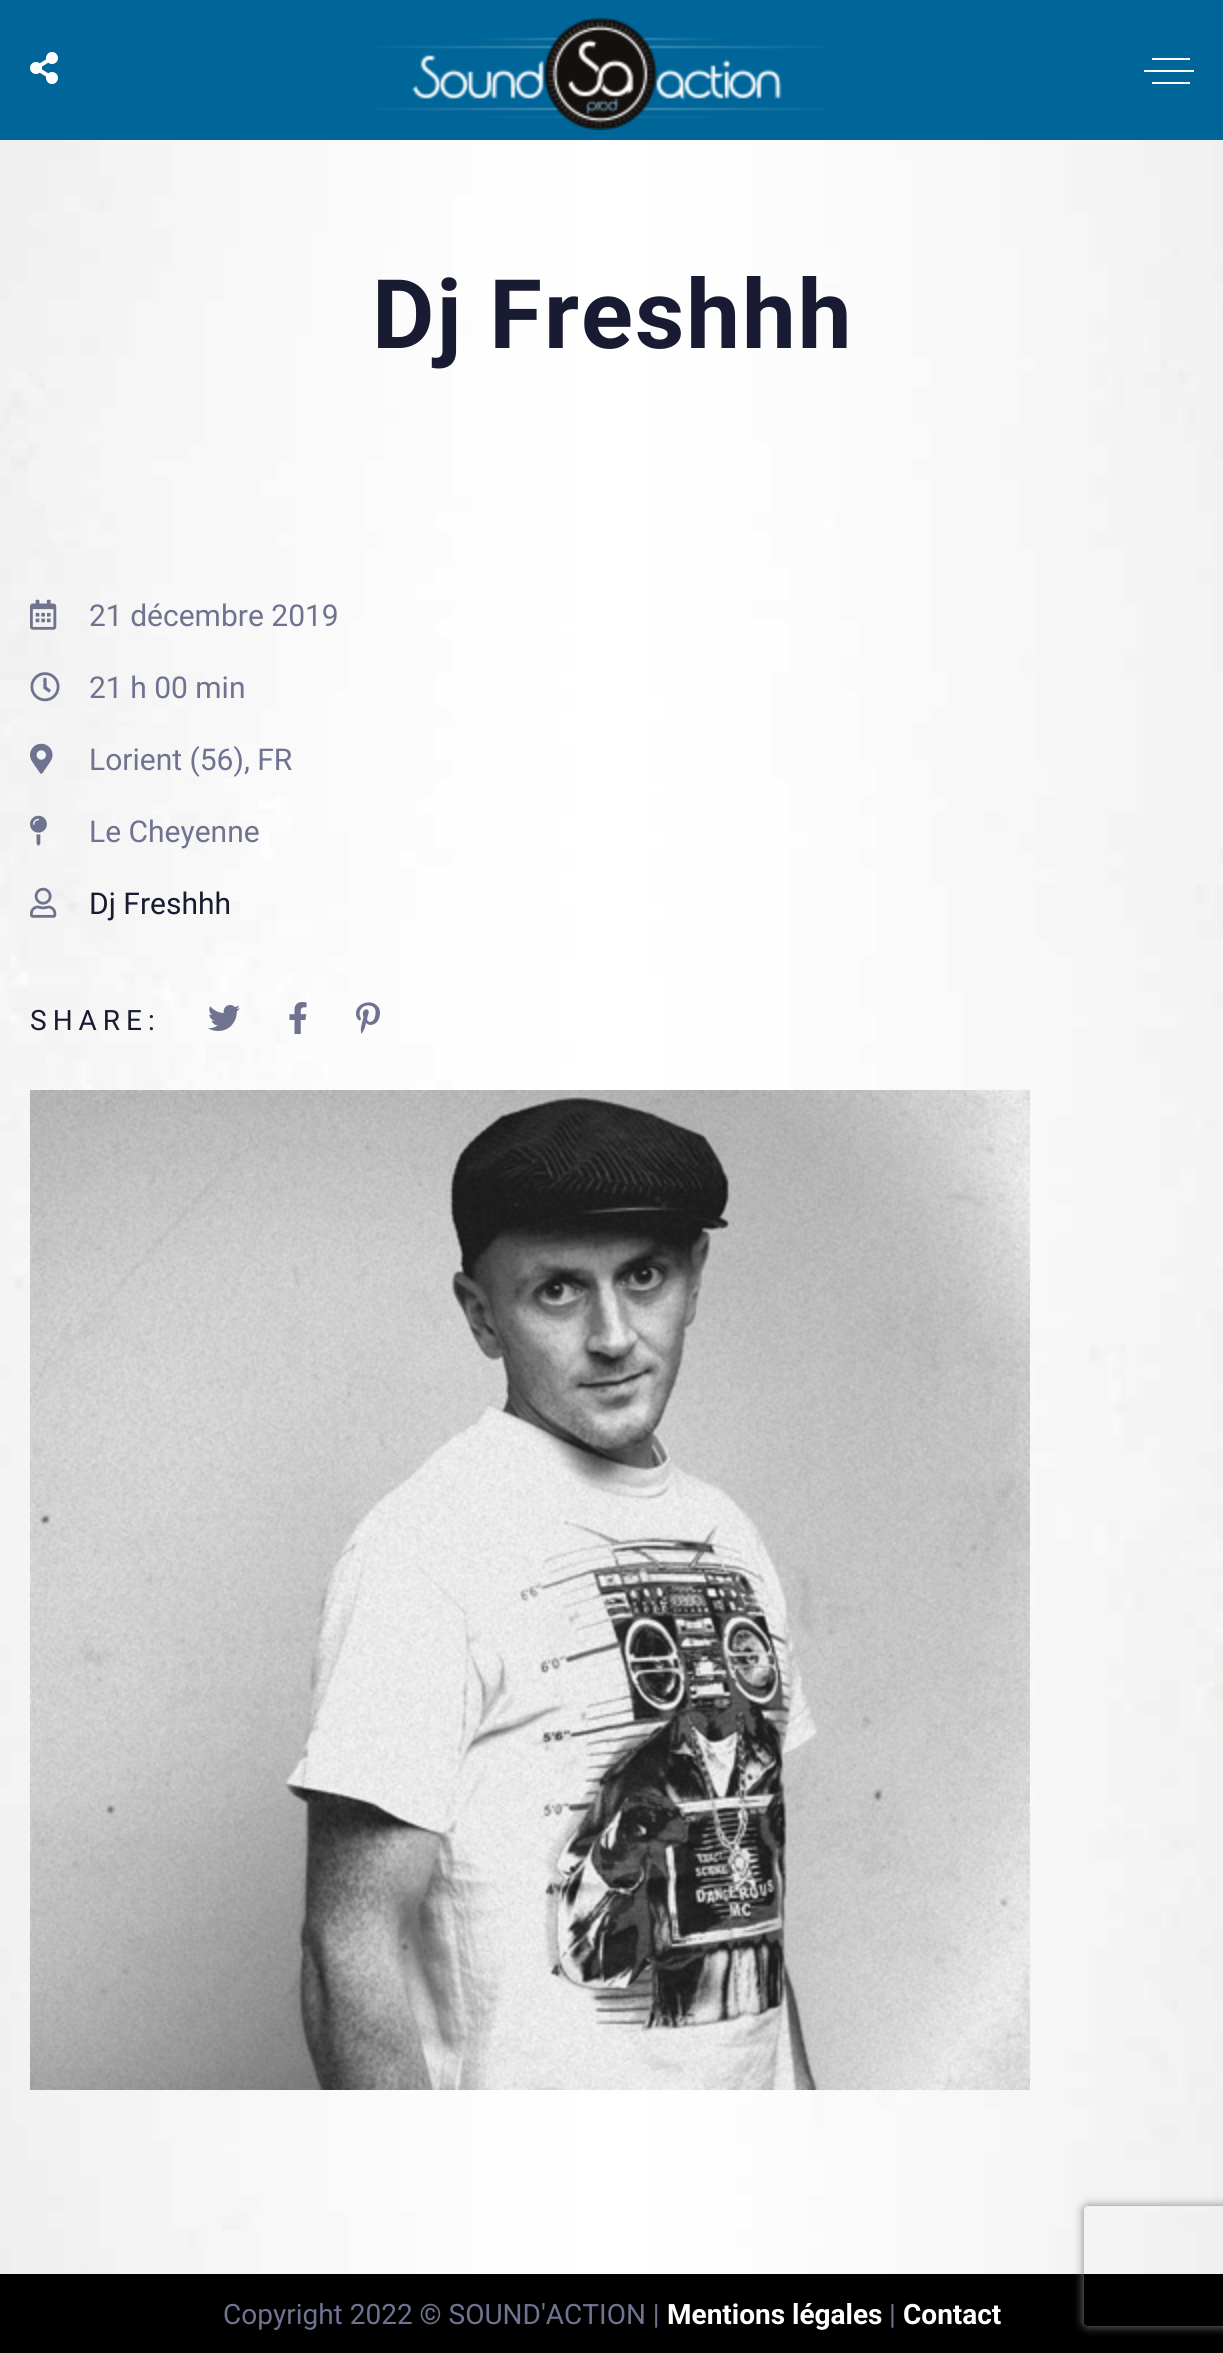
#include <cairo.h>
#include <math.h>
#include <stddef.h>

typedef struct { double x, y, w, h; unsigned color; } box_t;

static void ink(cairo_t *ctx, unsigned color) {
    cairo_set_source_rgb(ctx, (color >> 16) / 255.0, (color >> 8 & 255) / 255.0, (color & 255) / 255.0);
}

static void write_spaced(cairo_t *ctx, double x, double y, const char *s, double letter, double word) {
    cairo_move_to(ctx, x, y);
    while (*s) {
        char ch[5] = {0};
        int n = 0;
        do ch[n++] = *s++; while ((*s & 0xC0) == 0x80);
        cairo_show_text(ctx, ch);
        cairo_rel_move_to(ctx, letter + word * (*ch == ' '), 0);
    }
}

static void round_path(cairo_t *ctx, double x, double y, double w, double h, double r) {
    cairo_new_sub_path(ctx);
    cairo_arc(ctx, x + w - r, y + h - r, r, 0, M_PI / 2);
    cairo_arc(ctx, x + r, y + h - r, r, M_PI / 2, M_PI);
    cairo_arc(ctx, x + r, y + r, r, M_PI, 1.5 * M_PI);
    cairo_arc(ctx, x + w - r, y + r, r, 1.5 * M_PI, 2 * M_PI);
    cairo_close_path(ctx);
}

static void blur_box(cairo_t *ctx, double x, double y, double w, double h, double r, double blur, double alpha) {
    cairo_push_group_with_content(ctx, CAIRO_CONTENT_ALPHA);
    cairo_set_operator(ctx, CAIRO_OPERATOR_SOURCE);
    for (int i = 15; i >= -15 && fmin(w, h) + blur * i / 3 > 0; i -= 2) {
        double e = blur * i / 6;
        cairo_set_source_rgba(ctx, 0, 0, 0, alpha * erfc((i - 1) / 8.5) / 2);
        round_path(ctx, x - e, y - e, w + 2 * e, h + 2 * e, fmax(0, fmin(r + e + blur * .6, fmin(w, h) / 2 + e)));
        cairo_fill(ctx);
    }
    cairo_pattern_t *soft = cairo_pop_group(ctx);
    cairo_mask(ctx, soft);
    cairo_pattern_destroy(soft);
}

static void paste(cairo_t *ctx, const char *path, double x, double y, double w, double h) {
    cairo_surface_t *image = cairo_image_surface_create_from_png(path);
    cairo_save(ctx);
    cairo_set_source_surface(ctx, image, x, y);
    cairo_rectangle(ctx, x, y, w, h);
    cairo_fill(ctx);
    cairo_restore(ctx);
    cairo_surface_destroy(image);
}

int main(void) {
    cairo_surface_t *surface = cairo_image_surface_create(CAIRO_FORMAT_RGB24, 1223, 2353);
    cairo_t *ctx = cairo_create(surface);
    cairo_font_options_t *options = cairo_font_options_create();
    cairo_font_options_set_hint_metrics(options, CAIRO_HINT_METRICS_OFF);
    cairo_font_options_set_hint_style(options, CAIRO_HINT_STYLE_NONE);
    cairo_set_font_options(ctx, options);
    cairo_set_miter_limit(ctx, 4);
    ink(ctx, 0xFFFFFF);
    cairo_paint(ctx);
    ink(ctx, 0x006699);
    cairo_rectangle(ctx, 0, 0, 1223, 140);
    cairo_fill(ctx);
    paste(ctx, "media/1.png", 30, 52, 28, 32);
    paste(ctx, "media/2.png", 378, 18, 446, 112);
    {
        static const box_t items[] = {
            {1152, 58, 38, 2, 0xFFFFFF},
            {1144, 70, 50, 2, 0xFFFFFF},
            {1152, 82, 38, 2, 0xFFFFFF},
        };
        for (size_t i = 0; i < sizeof items / sizeof *items; i++) {
            ink(ctx, items[i].color);
            cairo_rectangle(ctx, items[i].x, items[i].y, items[i].w, items[i].h);
            cairo_fill(ctx);
        }
    }
    paste(ctx, "media/3.png", 0, 140, 1223, 2134);
    cairo_select_font_face(ctx, "Roboto", CAIRO_FONT_SLANT_NORMAL, CAIRO_FONT_WEIGHT_BOLD);
    cairo_set_font_size(ctx, 96);
    ink(ctx, 0x181B31);
    write_spaced(ctx, 372, 348, "Dj Freshhh", 2, 0);
    paste(ctx, "media/4.png", 30, 599, 27, 31);
    cairo_select_font_face(ctx, "Roboto", CAIRO_FONT_SLANT_NORMAL, CAIRO_FONT_WEIGHT_NORMAL);
    cairo_set_font_size(ctx, 30);
    ink(ctx, 0x6F738F);
    cairo_move_to(ctx, 89, 626);
    cairo_show_text(ctx, "21 décembre 2019");
    paste(ctx, "media/5.png", 30, 672, 30, 30);
    cairo_move_to(ctx, 89, 698);
    cairo_show_text(ctx, "21 h 00 min");
    paste(ctx, "media/6.png", 30, 743, 23, 31);
    cairo_move_to(ctx, 89, 770);
    cairo_show_text(ctx, "Lorient (56), FR");
    paste(ctx, "media/7.png", 30, 815, 17, 31);
    cairo_move_to(ctx, 89, 842);
    cairo_show_text(ctx, "Le Cheyenne");
    paste(ctx, "media/8.png", 30, 887, 27, 31);
    ink(ctx, 0x181B31);
    cairo_move_to(ctx, 89, 914);
    cairo_show_text(ctx, "Dj Freshhh");
    cairo_set_font_size(ctx, 28);
    write_spaced(ctx, 30, 1030, "SHARE:", 6, 0);
    paste(ctx, "media/9.png", 208, 1005, 32, 26);
    paste(ctx, "media/10.png", 289, 1002, 18, 32);
    paste(ctx, "media/11.png", 356, 1002, 24, 32);
    paste(ctx, "media/12.png", 30, 1090, 1000, 1000);
    ink(ctx, 0x000000);
    cairo_rectangle(ctx, 0, 2274, 1223, 79);
    cairo_fill(ctx);
    ink(ctx, 0x6F738F);
    cairo_move_to(ctx, 223, 2324);
    cairo_show_text(ctx, "Copyright 2022 © SOUND'ACTION |");
    cairo_select_font_face(ctx, "Roboto", CAIRO_FONT_SLANT_NORMAL, CAIRO_FONT_WEIGHT_BOLD);
    ink(ctx, 0xFFFFFF);
    cairo_move_to(ctx, 667, 2324);
    cairo_show_text(ctx, "Mentions légales");
    cairo_select_font_face(ctx, "Roboto", CAIRO_FONT_SLANT_NORMAL, CAIRO_FONT_WEIGHT_NORMAL);
    ink(ctx, 0x6F738F);
    cairo_move_to(ctx, 889, 2324);
    cairo_show_text(ctx, "|");
    cairo_select_font_face(ctx, "Roboto", CAIRO_FONT_SLANT_NORMAL, CAIRO_FONT_WEIGHT_BOLD);
    ink(ctx, 0xFFFFFF);
    cairo_move_to(ctx, 903, 2324);
    cairo_show_text(ctx, "Contact");
    cairo_save(ctx);
    cairo_set_fill_rule(ctx, CAIRO_FILL_RULE_EVEN_ODD);
    cairo_new_path(ctx);
    cairo_move_to(ctx, 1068, 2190);
    cairo_line_to(ctx, 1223, 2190);
    cairo_line_to(ctx, 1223, 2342);
    cairo_line_to(ctx, 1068, 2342);
    cairo_close_path(ctx);
    cairo_move_to(ctx, 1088, 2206);
    cairo_line_to(ctx, 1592, 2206);
    cairo_curve_to(ctx, 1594, 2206, 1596, 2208, 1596, 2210);
    cairo_line_to(ctx, 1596, 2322);
    cairo_curve_to(ctx, 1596, 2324, 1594, 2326, 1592, 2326);
    cairo_line_to(ctx, 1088, 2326);
    cairo_curve_to(ctx, 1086, 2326, 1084, 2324, 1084, 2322);
    cairo_line_to(ctx, 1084, 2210);
    cairo_curve_to(ctx, 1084, 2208, 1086, 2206, 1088, 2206);
    cairo_close_path(ctx);
    cairo_clip(ctx);
    ink(ctx, 0x808080);
    blur_box(ctx, 1084, 2206, 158, 120, 4, 5, 1);
    cairo_restore(ctx);
    cairo_surface_write_to_png(surface, "image.png");
    cairo_font_options_destroy(options);
    cairo_destroy(ctx);
    cairo_surface_destroy(surface);
    return 0;
}
